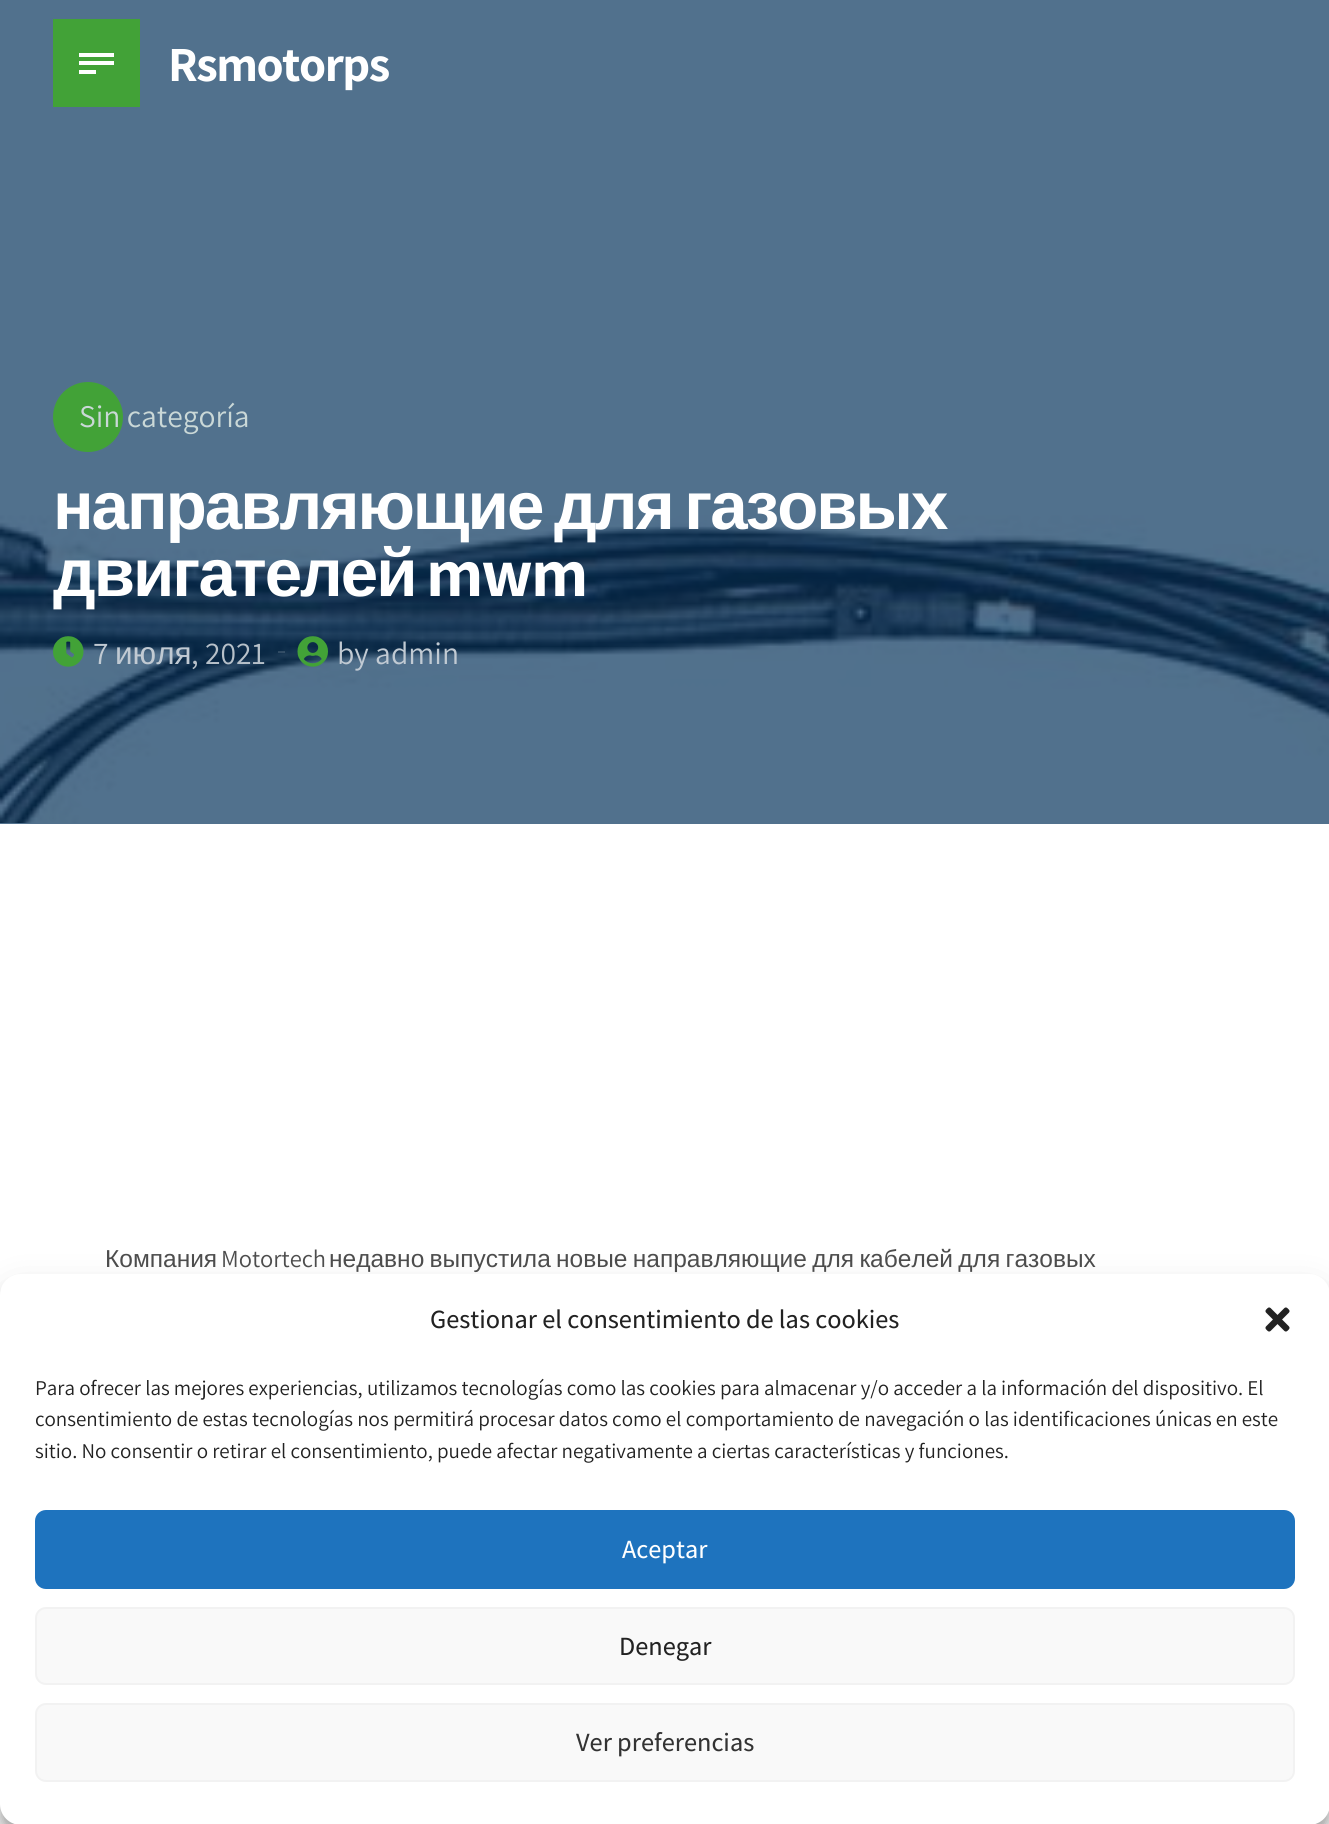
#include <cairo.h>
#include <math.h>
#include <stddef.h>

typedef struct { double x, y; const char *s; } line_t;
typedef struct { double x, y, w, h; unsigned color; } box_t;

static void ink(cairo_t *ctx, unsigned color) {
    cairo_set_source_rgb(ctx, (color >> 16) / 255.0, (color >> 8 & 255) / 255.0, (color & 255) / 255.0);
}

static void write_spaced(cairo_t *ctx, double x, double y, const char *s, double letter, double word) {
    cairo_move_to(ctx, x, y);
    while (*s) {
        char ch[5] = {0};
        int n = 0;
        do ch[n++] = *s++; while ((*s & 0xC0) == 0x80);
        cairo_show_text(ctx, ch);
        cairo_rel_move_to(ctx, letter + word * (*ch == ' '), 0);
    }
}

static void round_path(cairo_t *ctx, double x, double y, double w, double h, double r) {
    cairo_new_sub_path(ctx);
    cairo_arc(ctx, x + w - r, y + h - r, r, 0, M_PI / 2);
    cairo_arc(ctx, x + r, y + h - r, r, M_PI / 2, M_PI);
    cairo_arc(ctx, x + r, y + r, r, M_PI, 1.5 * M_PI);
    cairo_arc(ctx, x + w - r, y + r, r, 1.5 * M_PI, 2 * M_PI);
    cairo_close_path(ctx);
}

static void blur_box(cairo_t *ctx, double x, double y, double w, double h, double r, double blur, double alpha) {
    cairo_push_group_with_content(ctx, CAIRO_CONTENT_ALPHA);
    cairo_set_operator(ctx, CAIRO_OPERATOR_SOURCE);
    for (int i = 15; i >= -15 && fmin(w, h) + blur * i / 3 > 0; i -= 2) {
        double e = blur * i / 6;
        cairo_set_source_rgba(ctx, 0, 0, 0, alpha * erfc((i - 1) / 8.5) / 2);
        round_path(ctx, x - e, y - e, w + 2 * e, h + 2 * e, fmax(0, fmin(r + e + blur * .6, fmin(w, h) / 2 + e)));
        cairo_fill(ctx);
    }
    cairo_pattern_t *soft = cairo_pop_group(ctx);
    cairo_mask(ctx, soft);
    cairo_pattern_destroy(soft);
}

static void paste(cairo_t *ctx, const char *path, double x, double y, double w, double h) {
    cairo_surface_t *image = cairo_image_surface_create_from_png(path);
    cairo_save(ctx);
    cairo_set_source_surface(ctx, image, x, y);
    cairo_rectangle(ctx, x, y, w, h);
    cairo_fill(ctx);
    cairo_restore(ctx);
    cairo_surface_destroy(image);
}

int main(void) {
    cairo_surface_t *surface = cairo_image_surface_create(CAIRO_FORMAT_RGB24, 1329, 1824);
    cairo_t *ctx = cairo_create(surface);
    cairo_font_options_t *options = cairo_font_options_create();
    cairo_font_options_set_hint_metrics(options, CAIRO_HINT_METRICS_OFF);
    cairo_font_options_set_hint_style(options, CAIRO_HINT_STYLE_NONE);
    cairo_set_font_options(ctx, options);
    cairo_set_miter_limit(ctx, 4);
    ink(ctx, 0xFFFFFF);
    cairo_paint(ctx);
    {
        static const box_t items[] = {
            {0, 0, 1329, 824, 0x51718D},
            {53, 19, 87, 88, 0x42A237},
            {79, 53, 35, 4, 0xFFFFFF},
            {79, 61, 35, 4, 0xFFFFFF},
            {79, 70, 17, 4, 0xFFFFFF},
        };
        for (size_t i = 0; i < sizeof items / sizeof *items; i++) {
            ink(ctx, items[i].color);
            cairo_rectangle(ctx, items[i].x, items[i].y, items[i].w, items[i].h);
            cairo_fill(ctx);
        }
    }
    cairo_select_font_face(ctx, "Assistant", CAIRO_FONT_SLANT_NORMAL, CAIRO_FONT_WEIGHT_BOLD);
    cairo_set_font_size(ctx, 49);
    write_spaced(ctx, 168, 81, "Rsmotorps", -1.5, 0);
    paste(ctx, "media/1.png", 0, 515, 1329, 308);
    ink(ctx, 0x42A237);
    cairo_arc(ctx, 88, 417, 35, 0, 2 * M_PI);
    cairo_fill(ctx);
    cairo_select_font_face(ctx, "Assistant", CAIRO_FONT_SLANT_NORMAL, CAIRO_FONT_WEIGHT_NORMAL);
    cairo_set_font_size(ctx, 31.5);
    ink(ctx, 0xCAD8D7);
    cairo_move_to(ctx, 79, 427);
    cairo_show_text(ctx, "Sin categoría");
    cairo_select_font_face(ctx, "Liberation Sans", CAIRO_FONT_SLANT_NORMAL, CAIRO_FONT_WEIGHT_BOLD);
    cairo_set_font_size(ctx, 67.25);
    ink(ctx, 0xFFFFFF);
    write_spaced(ctx, 53, 529, "направляющие для газовых", -2, -5);
    write_spaced(ctx, 53, 596, "двигателей", -2, 0);
    cairo_select_font_face(ctx, "Assistant", CAIRO_FONT_SLANT_NORMAL, CAIRO_FONT_WEIGHT_BOLD);
    write_spaced(ctx, 426, 596, "mwm", -2, 0);
    paste(ctx, "media/2.png", 53, 636, 31, 31);
    cairo_select_font_face(ctx, "Assistant", CAIRO_FONT_SLANT_NORMAL, CAIRO_FONT_WEIGHT_NORMAL);
    cairo_set_font_size(ctx, 31.5);
    ink(ctx, 0xC1CAD3);
    cairo_move_to(ctx, 93, 664);
    cairo_show_text(ctx, "7");
    cairo_select_font_face(ctx, "Liberation Sans", CAIRO_FONT_SLANT_NORMAL, CAIRO_FONT_WEIGHT_NORMAL);
    cairo_move_to(ctx, 115, 664);
    cairo_show_text(ctx, "июля");
    cairo_select_font_face(ctx, "Assistant", CAIRO_FONT_SLANT_NORMAL, CAIRO_FONT_WEIGHT_NORMAL);
    ink(ctx, 0xB7C0C9);
    cairo_move_to(ctx, 191, 664);
    cairo_show_text(ctx, ", 2021");
    cairo_set_source_rgba(ctx, 1, 1, 1, 0.14);
    cairo_rectangle(ctx, 278, 651, 7, 2);
    cairo_fill(ctx);
    paste(ctx, "media/3.png", 297, 636, 31, 31);
    ink(ctx, 0xC1CAD3);
    cairo_move_to(ctx, 337, 664);
    cairo_show_text(ctx, "by admin");
    cairo_select_font_face(ctx, "Liberation Sans", CAIRO_FONT_SLANT_NORMAL, CAIRO_FONT_WEIGHT_NORMAL);
    cairo_set_font_size(ctx, 24.5);
    ink(ctx, 0x4D4D4D);
    cairo_move_to(ctx, 105, 1267);
    cairo_show_text(ctx, "Компания");
    cairo_select_font_face(ctx, "Assistant", CAIRO_FONT_SLANT_NORMAL, CAIRO_FONT_WEIGHT_NORMAL);
    cairo_move_to(ctx, 221, 1267);
    cairo_show_text(ctx, "Motortech");
    cairo_select_font_face(ctx, "Liberation Sans", CAIRO_FONT_SLANT_NORMAL, CAIRO_FONT_WEIGHT_NORMAL);
    write_spaced(ctx, 329, 1267, "недавно выпустила новые направляющие для кабелей для газовых", 0, -1.5);
    ink(ctx, 0x000000);
    blur_box(ctx, 0, 1285, 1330, 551, 21, 5, 0.23);
    blur_box(ctx, 0, 1292, 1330, 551, 21, 17.5, 0.19);
    ink(ctx, 0xFFFFFF);
    round_path(ctx, 0, 1274, 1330, 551, 21);
    cairo_fill(ctx);
    cairo_select_font_face(ctx, "Assistant Medium", CAIRO_FONT_SLANT_NORMAL, CAIRO_FONT_WEIGHT_NORMAL);
    cairo_set_font_size(ctx, 26.25);
    ink(ctx, 0x222222);
    cairo_move_to(ctx, 430, 1328);
    cairo_show_text(ctx, "Gestionar el consentimiento de las cookies");
    paste(ctx, "media/4.png", 1265, 1307, 25, 25);
    cairo_select_font_face(ctx, "Assistant", CAIRO_FONT_SLANT_NORMAL, CAIRO_FONT_WEIGHT_NORMAL);
    cairo_set_font_size(ctx, 21);
    {
        static const line_t items[] = {
            {35, 1395, "Para ofrecer las mejores experiencias, utilizamos tecnologías como las cookies para almacenar y/o acceder a la información del dispositivo. El"},
            {35, 1426, "consentimiento de estas tecnologías nos permitirá procesar datos como el comportamiento de navegación o las identificaciones únicas en este"},
            {35, 1458, "sitio. No consentir o retirar el consentimiento, puede afectar negativamente a ciertas características y funciones."},
        };
        for (size_t i = 0; i < sizeof items / sizeof *items; i++) {
            cairo_move_to(ctx, items[i].x, items[i].y);
            cairo_show_text(ctx, items[i].s);
        }
    }
    ink(ctx, 0x1E73BE);
    round_path(ctx, 36, 1511, 1258, 77, 10);
    cairo_fill_preserve(ctx);
    cairo_stroke(ctx);
    cairo_select_font_face(ctx, "Assistant Medium", CAIRO_FONT_SLANT_NORMAL, CAIRO_FONT_WEIGHT_NORMAL);
    cairo_set_font_size(ctx, 26.25);
    ink(ctx, 0xFFFFFF);
    cairo_move_to(ctx, 622, 1558);
    cairo_show_text(ctx, "Aceptar");
    ink(ctx, 0xF9F9F9);
    round_path(ctx, 36, 1608, 1258, 76, 10);
    cairo_fill_preserve(ctx);
    ink(ctx, 0xF2F2F2);
    cairo_stroke(ctx);
    ink(ctx, 0x222222);
    cairo_move_to(ctx, 619, 1655);
    cairo_show_text(ctx, "Denegar");
    ink(ctx, 0xF9F9F9);
    round_path(ctx, 36, 1704, 1258, 77, 10);
    cairo_fill_preserve(ctx);
    ink(ctx, 0xF2F2F2);
    cairo_stroke(ctx);
    ink(ctx, 0x333333);
    cairo_move_to(ctx, 576, 1751);
    cairo_show_text(ctx, "Ver preferencias");
    cairo_surface_write_to_png(surface, "image.png");
    cairo_font_options_destroy(options);
    cairo_destroy(ctx);
    cairo_surface_destroy(surface);
    return 0;
}
